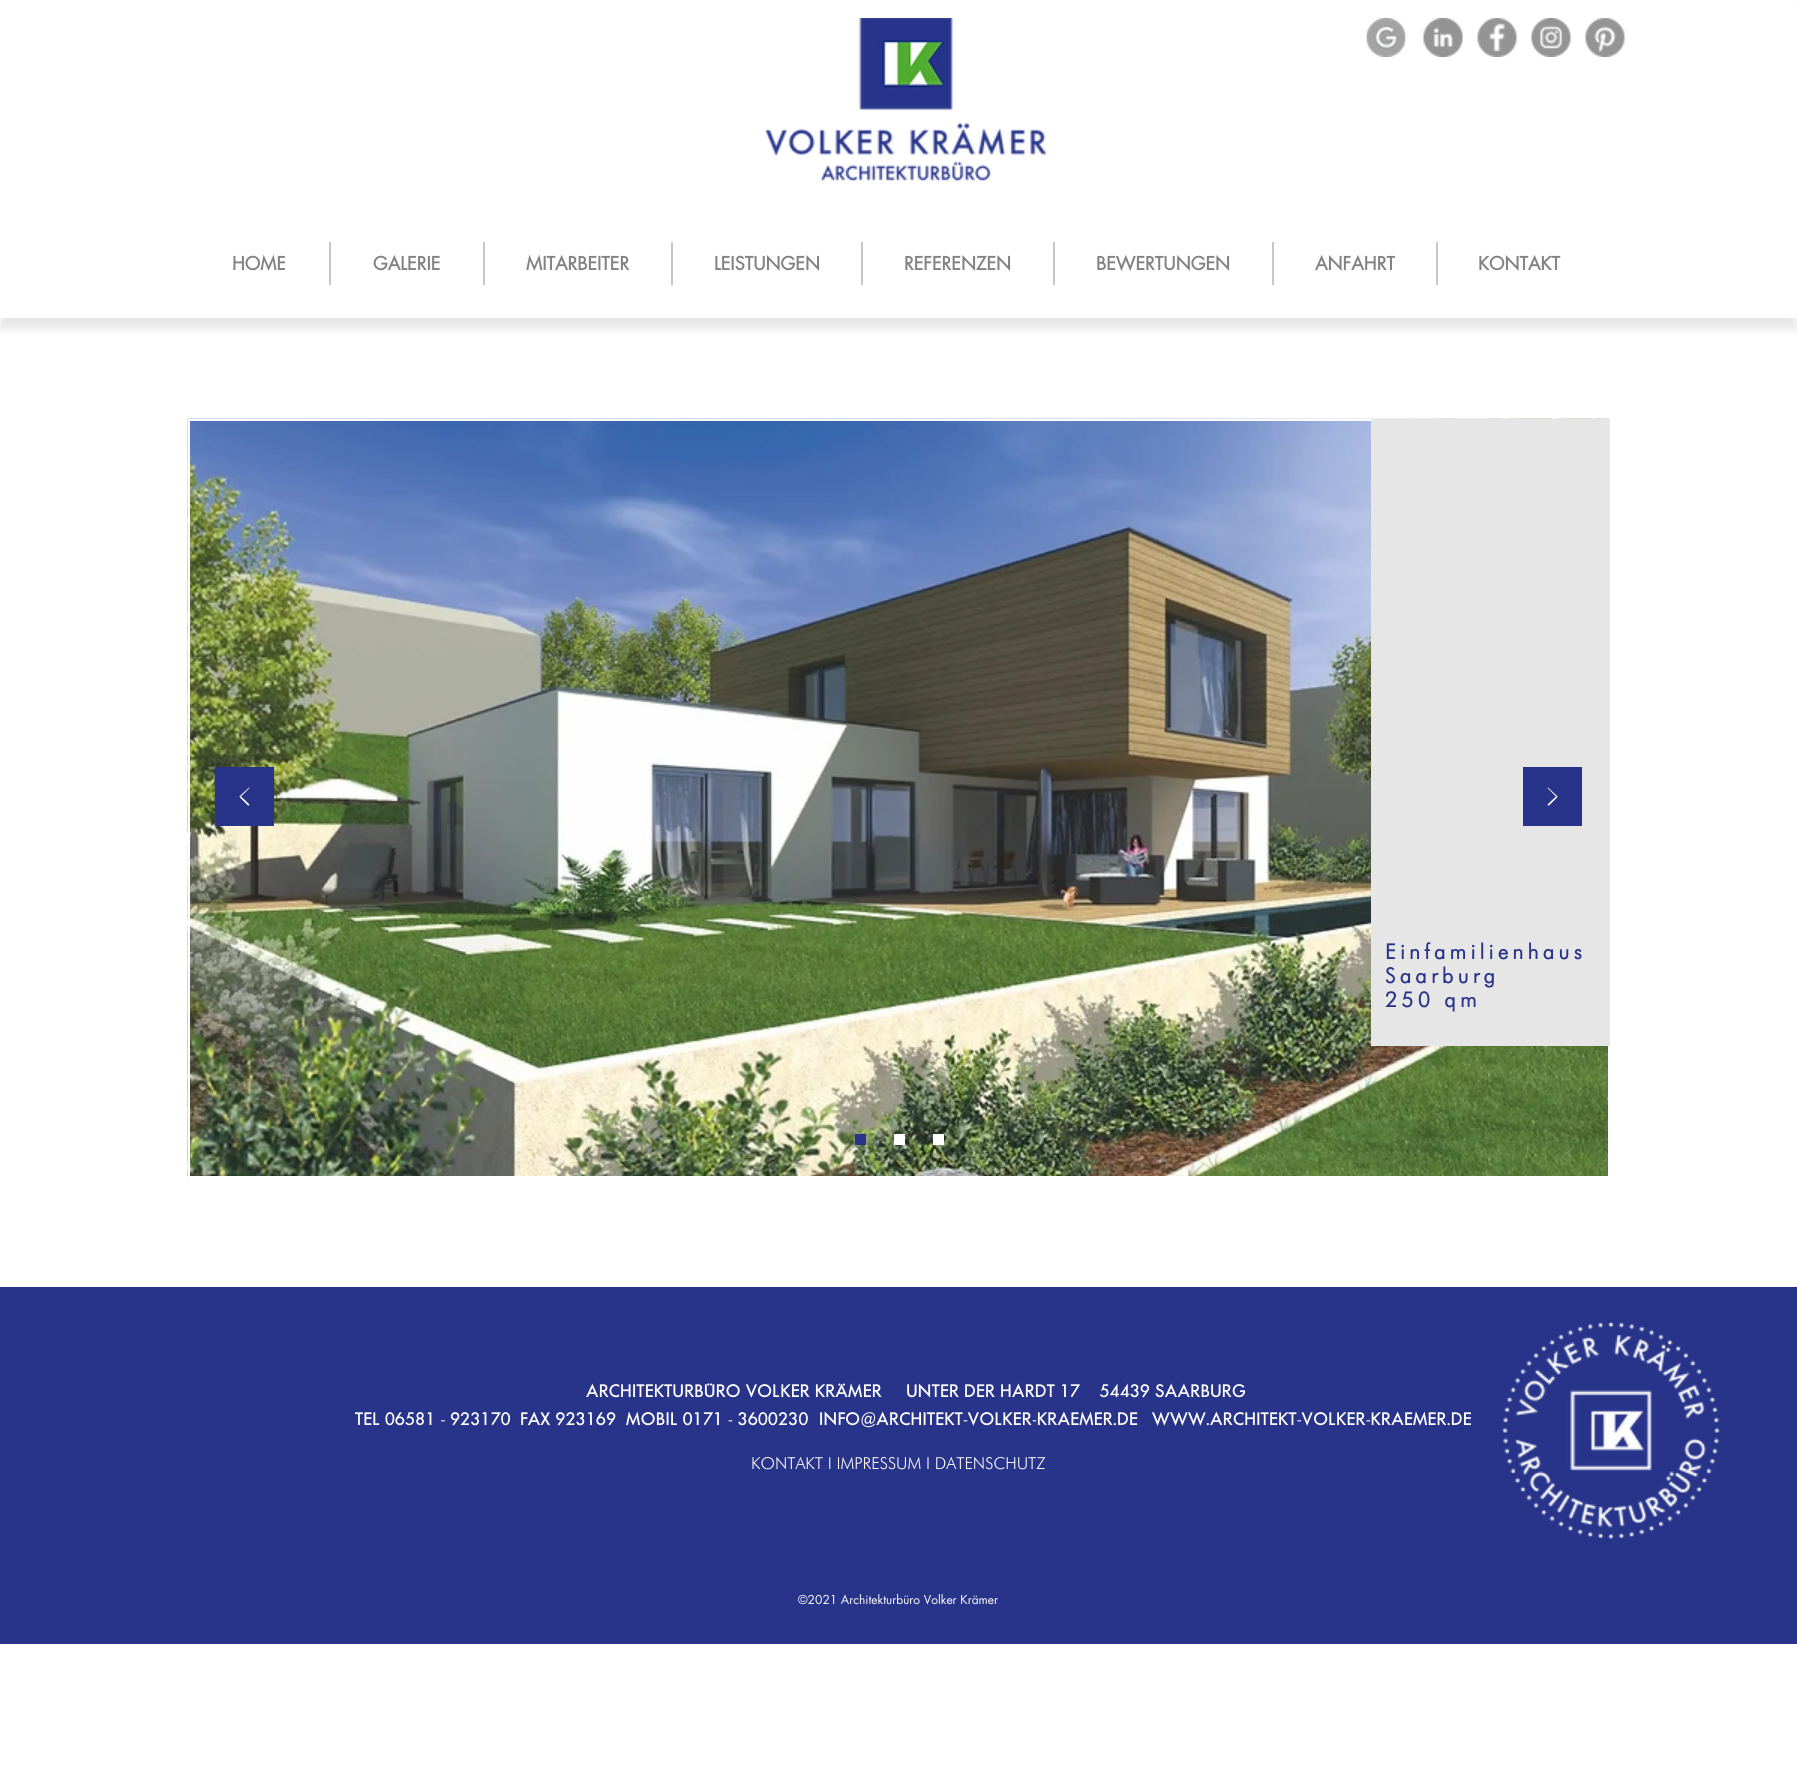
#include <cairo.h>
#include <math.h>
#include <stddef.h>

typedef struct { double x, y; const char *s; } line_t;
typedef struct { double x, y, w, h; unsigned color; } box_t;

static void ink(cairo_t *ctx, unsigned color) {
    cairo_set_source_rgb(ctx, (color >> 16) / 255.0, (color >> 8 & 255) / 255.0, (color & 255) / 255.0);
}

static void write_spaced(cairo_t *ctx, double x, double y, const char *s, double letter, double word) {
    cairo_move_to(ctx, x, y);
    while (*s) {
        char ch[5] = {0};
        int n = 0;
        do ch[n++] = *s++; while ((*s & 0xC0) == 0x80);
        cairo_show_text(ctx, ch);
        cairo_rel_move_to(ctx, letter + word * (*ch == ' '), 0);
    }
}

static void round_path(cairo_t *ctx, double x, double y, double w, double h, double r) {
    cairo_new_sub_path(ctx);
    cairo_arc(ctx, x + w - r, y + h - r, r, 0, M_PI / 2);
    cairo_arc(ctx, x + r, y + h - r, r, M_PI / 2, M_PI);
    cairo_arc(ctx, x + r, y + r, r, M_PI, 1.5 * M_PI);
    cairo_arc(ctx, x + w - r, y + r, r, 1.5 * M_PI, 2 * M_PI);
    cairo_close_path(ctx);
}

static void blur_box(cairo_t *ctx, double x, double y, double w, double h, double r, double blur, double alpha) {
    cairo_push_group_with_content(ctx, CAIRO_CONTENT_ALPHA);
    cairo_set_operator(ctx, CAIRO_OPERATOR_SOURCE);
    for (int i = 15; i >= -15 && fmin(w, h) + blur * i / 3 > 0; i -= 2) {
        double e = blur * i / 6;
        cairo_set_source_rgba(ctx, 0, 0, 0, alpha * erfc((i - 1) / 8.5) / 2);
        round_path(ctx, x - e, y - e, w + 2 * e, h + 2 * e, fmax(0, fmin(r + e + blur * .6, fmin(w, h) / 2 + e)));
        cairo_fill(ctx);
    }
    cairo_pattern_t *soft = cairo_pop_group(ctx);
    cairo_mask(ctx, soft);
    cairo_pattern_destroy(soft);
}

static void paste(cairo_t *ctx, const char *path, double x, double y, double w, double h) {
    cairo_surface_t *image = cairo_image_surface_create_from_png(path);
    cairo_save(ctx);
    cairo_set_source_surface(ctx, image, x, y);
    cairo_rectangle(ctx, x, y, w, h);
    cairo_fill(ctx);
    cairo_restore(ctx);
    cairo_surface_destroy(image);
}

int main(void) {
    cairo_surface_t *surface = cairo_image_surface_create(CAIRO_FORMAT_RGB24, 1797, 1791);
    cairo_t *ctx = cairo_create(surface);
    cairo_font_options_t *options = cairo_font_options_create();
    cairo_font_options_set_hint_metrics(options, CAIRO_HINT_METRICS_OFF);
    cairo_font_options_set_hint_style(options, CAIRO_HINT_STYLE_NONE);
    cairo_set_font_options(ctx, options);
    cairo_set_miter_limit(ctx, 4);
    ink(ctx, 0xFFFFFF);
    cairo_paint(ctx);
    ink(ctx, 0x000000);
    blur_box(ctx, 0, 11, 1797, 318, 0, 4.5, 0.1);
    ink(ctx, 0xFFFFFF);
    cairo_rectangle(ctx, 0, 5, 1797, 313);
    cairo_fill(ctx);
    paste(ctx, "media/1.png", 765, 18, 282, 163);
    paste(ctx, "media/2.png", 1366, 18, 40, 39);
    paste(ctx, "media/3.png", 1423, 18, 40, 39);
    paste(ctx, "media/4.png", 1477, 18, 40, 39);
    paste(ctx, "media/5.png", 1531, 18, 40, 39);
    paste(ctx, "media/6.png", 1585, 18, 40, 39);
    cairo_select_font_face(ctx, "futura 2", CAIRO_FONT_SLANT_NORMAL, CAIRO_FONT_WEIGHT_BOLD);
    cairo_set_font_size(ctx, 18);
    ink(ctx, 0x828282);
    cairo_move_to(ctx, 232, 270);
    cairo_show_text(ctx, "HOME");
    ink(ctx, 0xC7C7C7);
    cairo_rectangle(ctx, 329, 242, 2, 43);
    cairo_fill(ctx);
    ink(ctx, 0x828282);
    cairo_move_to(ctx, 373, 270);
    cairo_show_text(ctx, "GALERIE");
    ink(ctx, 0xC7C7C7);
    cairo_rectangle(ctx, 483, 242, 2, 43);
    cairo_fill(ctx);
    ink(ctx, 0x828282);
    cairo_move_to(ctx, 526, 270);
    cairo_show_text(ctx, "MITARBEITER");
    ink(ctx, 0xC7C7C7);
    cairo_rectangle(ctx, 671, 242, 2, 43);
    cairo_fill(ctx);
    ink(ctx, 0x828282);
    cairo_move_to(ctx, 714, 270);
    cairo_show_text(ctx, "LEISTUNGEN");
    ink(ctx, 0xC7C7C7);
    cairo_rectangle(ctx, 861, 242, 2, 43);
    cairo_fill(ctx);
    ink(ctx, 0x828282);
    cairo_move_to(ctx, 904, 270);
    cairo_show_text(ctx, "REFERENZEN");
    ink(ctx, 0xC7C7C7);
    cairo_rectangle(ctx, 1053, 242, 2, 43);
    cairo_fill(ctx);
    ink(ctx, 0x828282);
    cairo_move_to(ctx, 1096, 270);
    cairo_show_text(ctx, "BEWERTUNGEN");
    ink(ctx, 0xC7C7C7);
    cairo_rectangle(ctx, 1272, 242, 2, 43);
    cairo_fill(ctx);
    ink(ctx, 0x828282);
    cairo_move_to(ctx, 1315, 270);
    cairo_show_text(ctx, "ANFAHRT");
    ink(ctx, 0xC7C7C7);
    cairo_rectangle(ctx, 1436, 242, 2, 43);
    cairo_fill(ctx);
    ink(ctx, 0x828282);
    cairo_move_to(ctx, 1478, 270);
    cairo_show_text(ctx, "KONTAKT");
    paste(ctx, "media/7.png", 187, 418, 1423, 760);
    cairo_rectangle(ctx, 189, 420, 1420, 757);
    ink(ctx, 0xFFFFFF);
    cairo_stroke(ctx);
    ink(ctx, 0x27348A);
    cairo_rectangle(ctx, 215, 767, 59, 59);
    cairo_fill(ctx);
    ink(ctx, 0xFFFFFF);
    cairo_new_path(ctx);
    cairo_move_to(ctx, 248.5, 805.5);
    cairo_curve_to(ctx, 251, 805.5, 248, 803, 241, 796.5);
    cairo_line_to(ctx, 249, 788.5);
    cairo_curve_to(ctx, 249.5, 788.5, 249.5, 787.5, 249, 787.5);
    cairo_line_to(ctx, 241, 795);
    cairo_curve_to(ctx, 239, 797, 239, 796.5, 241, 798.5);
    cairo_line_to(ctx, 248, 805.5);
    cairo_close_path(ctx);
    cairo_fill(ctx);
    ink(ctx, 0xE6E6E6);
    cairo_rectangle(ctx, 1371, 419, 239, 627);
    cairo_fill(ctx);
    ink(ctx, 0x27348A);
    cairo_rectangle(ctx, 1523, 767, 59, 59);
    cairo_fill(ctx);
    ink(ctx, 0xFFFFFF);
    cairo_new_path(ctx);
    cairo_move_to(ctx, 1548.5, 805.5);
    cairo_curve_to(ctx, 1546, 805.5, 1549, 803, 1556, 796.5);
    cairo_line_to(ctx, 1548, 788.5);
    cairo_curve_to(ctx, 1547.5, 788.5, 1547.5, 787.5, 1548, 787.5);
    cairo_line_to(ctx, 1556, 795);
    cairo_curve_to(ctx, 1558, 797, 1558, 796.5, 1556, 798.5);
    cairo_line_to(ctx, 1549, 805.5);
    cairo_close_path(ctx);
    cairo_fill(ctx);
    cairo_select_font_face(ctx, "Futura", CAIRO_FONT_SLANT_NORMAL, CAIRO_FONT_WEIGHT_BOLD);
    cairo_set_font_size(ctx, 21);
    ink(ctx, 0x27348A);
    {
        static const line_t items[] = {
            {1385, 959, "Einfamilienhaus"},
            {1385, 983, "Saarburg"},
            {1385, 1007, "250 qm"},
        };
        for (size_t i = 0; i < sizeof items / sizeof *items; i++) {
            write_spaced(ctx, items[i].x, items[i].y, items[i].s, 4.25, 0);
        }
    }
    {
        static const box_t items[] = {
            {855, 1134, 11, 11, 0x27348A},
            {894, 1134, 11, 11, 0xFFFFFF},
            {933, 1134, 11, 11, 0xFFFFFF},
            {0, 1287, 1797, 357, 0x27348A},
        };
        for (size_t i = 0; i < sizeof items / sizeof *items; i++) {
            ink(ctx, items[i].color);
            cairo_rectangle(ctx, items[i].x, items[i].y, items[i].w, items[i].h);
            cairo_fill(ctx);
        }
    }
    cairo_select_font_face(ctx, "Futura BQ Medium", CAIRO_FONT_SLANT_NORMAL, CAIRO_FONT_WEIGHT_NORMAL);
    cairo_set_font_size(ctx, 18);
    ink(ctx, 0xFFFFFF);
    {
        static const line_t items[] = {
            {586, 1397, "ARCHITEKTURBÜRO VOLKER KRÄMER     UNTER DER HARDT 17    54439 SAARBURG"},
            {355, 1425, "TEL 06581 - 923170"},
            {520, 1425, "FAX 923169  MOBIL 0171 - 3600230"},
            {819, 1425, "INFO@ARCHITEKT-VOLKER-KRAEMER.DE"},
            {1152, 1425, "WWW.ARCHITEKT-VOLKER-KRAEMER.DE"},
        };
        for (size_t i = 0; i < sizeof items / sizeof *items; i++) {
            cairo_move_to(ctx, items[i].x, items[i].y);
            cairo_show_text(ctx, items[i].s);
        }
    }
    paste(ctx, "media/8.png", 1502, 1322, 218, 217);
    cairo_select_font_face(ctx, "Futura Light", CAIRO_FONT_SLANT_NORMAL, CAIRO_FONT_WEIGHT_NORMAL);
    cairo_set_font_size(ctx, 16.5);
    cairo_move_to(ctx, 751, 1469);
    cairo_show_text(ctx, "KONTAKT I IMPRESSUM I DATENSCHUTZ");
    cairo_select_font_face(ctx, "futura", CAIRO_FONT_SLANT_NORMAL, CAIRO_FONT_WEIGHT_NORMAL);
    cairo_set_font_size(ctx, 12);
    cairo_move_to(ctx, 798, 1604);
    cairo_show_text(ctx, "©2021 Architekturbüro Volker Krämer");
    cairo_surface_write_to_png(surface, "image.png");
    cairo_font_options_destroy(options);
    cairo_destroy(ctx);
    cairo_surface_destroy(surface);
    return 0;
}
